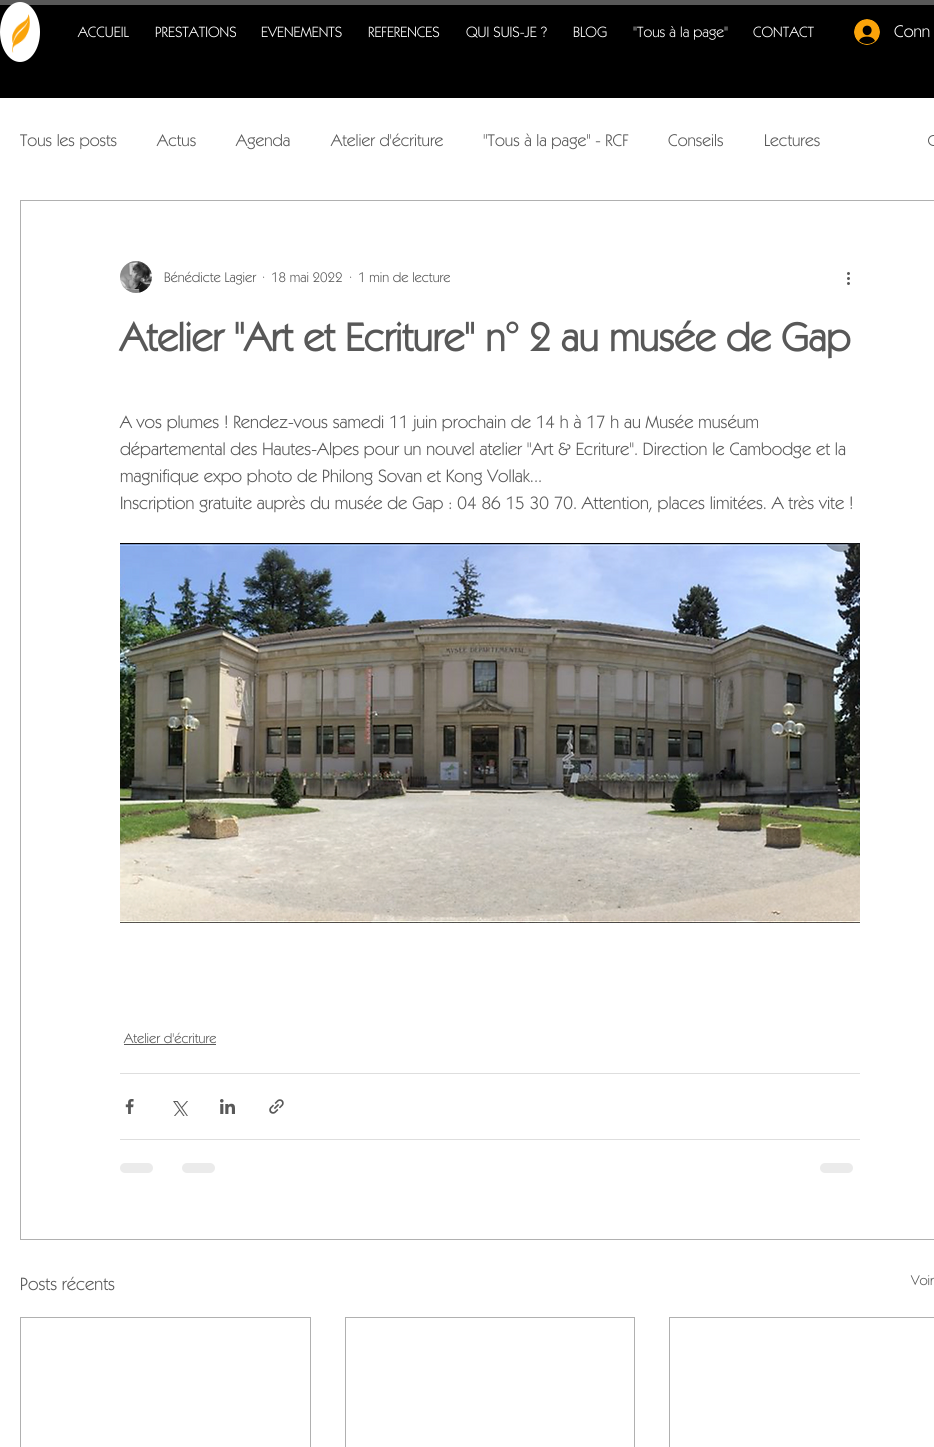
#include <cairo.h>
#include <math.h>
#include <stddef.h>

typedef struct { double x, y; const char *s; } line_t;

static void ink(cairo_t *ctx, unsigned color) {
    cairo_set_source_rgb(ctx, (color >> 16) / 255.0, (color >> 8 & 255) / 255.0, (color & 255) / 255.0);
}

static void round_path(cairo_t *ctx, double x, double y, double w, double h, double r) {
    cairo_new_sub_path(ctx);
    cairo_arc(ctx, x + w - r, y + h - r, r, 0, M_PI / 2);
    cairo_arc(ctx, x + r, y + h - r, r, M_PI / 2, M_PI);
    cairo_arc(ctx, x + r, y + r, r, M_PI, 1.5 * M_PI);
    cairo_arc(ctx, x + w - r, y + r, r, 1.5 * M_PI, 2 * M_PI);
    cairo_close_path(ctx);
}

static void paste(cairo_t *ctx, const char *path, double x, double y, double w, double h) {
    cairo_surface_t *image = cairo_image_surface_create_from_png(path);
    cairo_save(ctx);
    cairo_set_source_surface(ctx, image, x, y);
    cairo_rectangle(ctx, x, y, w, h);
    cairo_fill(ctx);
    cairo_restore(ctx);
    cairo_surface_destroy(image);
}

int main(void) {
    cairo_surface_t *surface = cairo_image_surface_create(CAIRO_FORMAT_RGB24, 934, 1447);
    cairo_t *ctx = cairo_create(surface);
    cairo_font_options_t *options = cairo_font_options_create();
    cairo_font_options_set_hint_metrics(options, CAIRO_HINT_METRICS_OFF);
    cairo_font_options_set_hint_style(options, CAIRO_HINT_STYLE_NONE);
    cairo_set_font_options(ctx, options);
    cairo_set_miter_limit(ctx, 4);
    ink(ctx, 0xFFFFFF);
    cairo_paint(ctx);
    ink(ctx, 0x000000);
    cairo_rectangle(ctx, 0, 5, 934, 93);
    cairo_fill(ctx);
    ink(ctx, 0x585858);
    cairo_rectangle(ctx, 0, 0, 934, 5);
    cairo_fill(ctx);
    ink(ctx, 0xFFFFFF);
    cairo_new_path(ctx);
    cairo_move_to(ctx, 20, 2);
    cairo_curve_to(ctx, 31, 2, 40, 15.5, 40, 32);
    cairo_curve_to(ctx, 40, 48.5, 31, 62, 20, 62);
    cairo_curve_to(ctx, 9, 62, 0, 48.5, 0, 32);
    cairo_curve_to(ctx, 0, 15.5, 9, 2, 20, 2);
    cairo_close_path(ctx);
    cairo_fill(ctx);
    paste(ctx, "media/1.png", 12, 14, 18, 39);
    cairo_select_font_face(ctx, "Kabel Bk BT", CAIRO_FONT_SLANT_NORMAL, CAIRO_FONT_WEIGHT_NORMAL);
    cairo_set_font_size(ctx, 15);
    {
        static const line_t items[] = {
            {78, 37, "ACCUEIL"},
            {155, 37, "PRESTATIONS"},
            {261, 37, "EVENEMENTS"},
            {368, 37, "REFERENCES"},
            {466, 37, "QUI SUIS-JE ?"},
            {573, 37, "BLOG"},
            {633, 37, "\"Tous à la page\""},
            {753, 37, "CONTACT"},
        };
        for (size_t i = 0; i < sizeof items / sizeof *items; i++) {
            cairo_move_to(ctx, items[i].x, items[i].y);
            cairo_show_text(ctx, items[i].s);
        }
    }
    paste(ctx, "media/2.png", 854, 19, 26, 26);
    cairo_set_font_size(ctx, 17);
    cairo_move_to(ctx, 894, 37);
    cairo_show_text(ctx, "Conn");
    ink(ctx, 0x585858);
    {
        static const line_t items[] = {
            {20, 146, "Tous les posts"},
            {157, 146, "Actus"},
            {236, 146, "Agenda"},
            {331, 146, "Atelier d'écriture"},
            {483, 146, "\"Tous à la page\" - RCF"},
            {668, 146, "Conseils"},
            {764, 146, "Lectures"},
        };
        for (size_t i = 0; i < sizeof items / sizeof *items; i++) {
            cairo_move_to(ctx, items[i].x, items[i].y);
            cairo_show_text(ctx, items[i].s);
        }
    }
    paste(ctx, "media/3.png", 928, 135, 6, 11);
    cairo_rectangle(ctx, 20.5, 200.5, 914, 1039);
    ink(ctx, 0xB0B0B0);
    cairo_set_line_width(ctx, 1);
    cairo_stroke(ctx);
    paste(ctx, "media/4.png", 120, 261, 32, 32);
    cairo_set_font_size(ctx, 14);
    ink(ctx, 0x585858);
    {
        static const line_t items[] = {
            {164, 282, "Bénédicte Lagier"},
            {262, 282, "·"},
            {271, 282, "18 mai 2022"},
            {349, 282, "·"},
            {358, 282, "1 min de lecture"},
        };
        for (size_t i = 0; i < sizeof items / sizeof *items; i++) {
            cairo_move_to(ctx, items[i].x, items[i].y);
            cairo_show_text(ctx, items[i].s);
        }
    }
    paste(ctx, "media/5.png", 847, 272, 3, 13);
    cairo_select_font_face(ctx, "Kabel Bk BT", CAIRO_FONT_SLANT_NORMAL, CAIRO_FONT_WEIGHT_BOLD);
    cairo_set_font_size(ctx, 40);
    cairo_move_to(ctx, 120, 351);
    cairo_show_text(ctx, "Atelier \"Art et Ecriture\" n° 2 au musée de Gap");
    cairo_select_font_face(ctx, "Kabel Bk BT", CAIRO_FONT_SLANT_NORMAL, CAIRO_FONT_WEIGHT_NORMAL);
    cairo_set_font_size(ctx, 18);
    {
        static const line_t items[] = {
            {120, 428, "A vos plumes ! Rendez-vous samedi 11 juin prochain de 14 h à 17 h au Musée muséum"},
            {120, 455, "départemental des Hautes-Alpes pour un nouvel atelier \"Art & Ecriture\". Direction le Cambodge et la"},
            {120, 482, "magnifique expo photo de Philong Sovan et Kong Vollak..."},
            {120, 509, "Inscription gratuite auprès du musée de Gap : 04 86 15 30 70. Attention, places limitées. A très vite !"},
        };
        for (size_t i = 0; i < sizeof items / sizeof *items; i++) {
            cairo_move_to(ctx, items[i].x, items[i].y);
            cairo_show_text(ctx, items[i].s);
        }
    }
    paste(ctx, "media/6.png", 120, 543, 740, 380);
    cairo_set_font_size(ctx, 14);
    cairo_move_to(ctx, 124, 1043);
    cairo_show_text(ctx, "Atelier d'écriture");
    cairo_rectangle(ctx, 124, 1044, 92, 1);
    cairo_fill(ctx);
    ink(ctx, 0xDEDEDE);
    cairo_rectangle(ctx, 120, 1073, 740, 1);
    cairo_fill(ctx);
    paste(ctx, "media/7.png", 125, 1099, 9, 15);
    paste(ctx, "media/8.png", 173, 1101, 15, 15);
    paste(ctx, "media/9.png", 220, 1099, 15, 15);
    paste(ctx, "media/10.png", 269, 1099, 15, 15);
    cairo_rectangle(ctx, 120, 1139, 740, 1);
    cairo_fill(ctx);
    ink(ctx, 0xEBEBEB);
    round_path(ctx, 120, 1163, 33, 10, 5);
    cairo_fill(ctx);
    round_path(ctx, 182, 1163, 33, 10, 5);
    cairo_fill(ctx);
    round_path(ctx, 820, 1163, 33, 10, 5);
    cairo_fill(ctx);
    cairo_set_font_size(ctx, 18);
    ink(ctx, 0x585858);
    cairo_move_to(ctx, 20, 1290);
    cairo_show_text(ctx, "Posts récents");
    cairo_set_font_size(ctx, 14);
    cairo_move_to(ctx, 911, 1285);
    cairo_show_text(ctx, "Voir");
    cairo_rectangle(ctx, 20.5, 1317.5, 290, 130);
    ink(ctx, 0xB0B0B0);
    cairo_stroke(ctx);
    cairo_rectangle(ctx, 345.5, 1317.5, 289, 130);
    cairo_stroke(ctx);
    cairo_rectangle(ctx, 669.5, 1317.5, 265, 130);
    cairo_stroke(ctx);
    cairo_surface_write_to_png(surface, "image.png");
    cairo_font_options_destroy(options);
    cairo_destroy(ctx);
    cairo_surface_destroy(surface);
    return 0;
}
